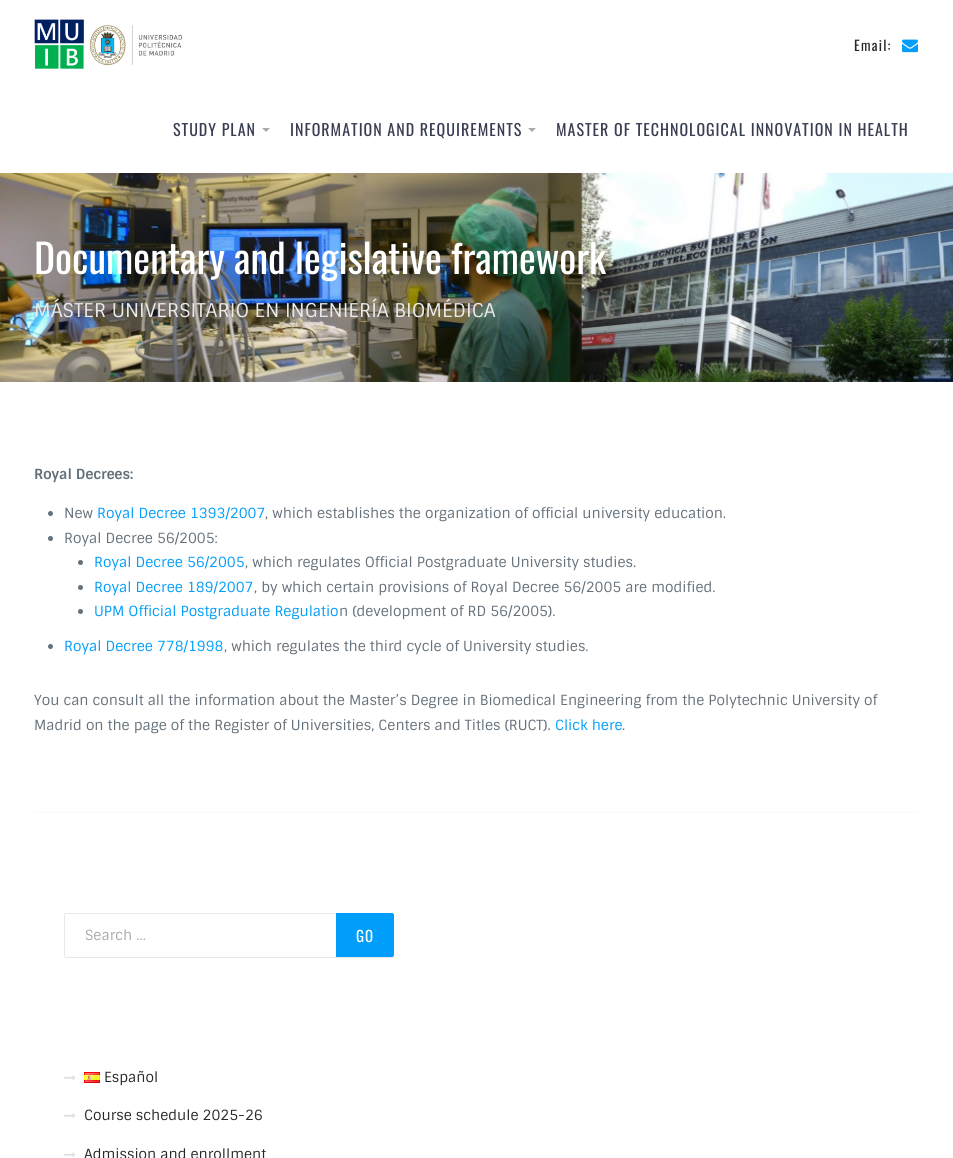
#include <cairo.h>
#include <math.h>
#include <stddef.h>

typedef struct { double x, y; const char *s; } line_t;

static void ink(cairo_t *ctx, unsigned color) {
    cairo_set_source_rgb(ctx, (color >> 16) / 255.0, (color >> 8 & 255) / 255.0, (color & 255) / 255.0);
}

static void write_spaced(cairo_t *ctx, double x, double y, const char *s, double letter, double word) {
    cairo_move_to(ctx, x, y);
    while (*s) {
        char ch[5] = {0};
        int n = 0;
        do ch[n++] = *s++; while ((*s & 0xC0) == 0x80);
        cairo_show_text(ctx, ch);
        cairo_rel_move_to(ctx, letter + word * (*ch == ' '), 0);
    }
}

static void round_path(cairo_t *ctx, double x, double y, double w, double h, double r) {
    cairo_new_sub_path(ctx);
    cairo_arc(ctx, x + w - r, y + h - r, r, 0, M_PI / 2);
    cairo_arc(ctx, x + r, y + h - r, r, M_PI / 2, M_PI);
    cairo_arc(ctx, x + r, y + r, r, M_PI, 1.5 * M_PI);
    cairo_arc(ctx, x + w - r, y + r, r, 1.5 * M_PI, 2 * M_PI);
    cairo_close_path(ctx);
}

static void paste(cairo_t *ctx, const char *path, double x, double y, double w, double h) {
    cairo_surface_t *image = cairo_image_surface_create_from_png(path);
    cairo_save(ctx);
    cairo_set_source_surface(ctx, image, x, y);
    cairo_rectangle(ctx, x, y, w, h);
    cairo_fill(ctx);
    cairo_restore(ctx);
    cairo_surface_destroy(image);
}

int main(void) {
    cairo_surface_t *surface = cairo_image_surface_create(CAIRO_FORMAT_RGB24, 953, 1158);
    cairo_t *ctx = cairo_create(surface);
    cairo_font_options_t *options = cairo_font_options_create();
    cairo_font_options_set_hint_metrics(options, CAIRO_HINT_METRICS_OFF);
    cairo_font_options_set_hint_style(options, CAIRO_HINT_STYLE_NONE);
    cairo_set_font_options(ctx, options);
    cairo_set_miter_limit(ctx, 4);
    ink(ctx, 0xFFFFFF);
    cairo_paint(ctx);
    paste(ctx, "media/1.png", 34, 19, 148, 50);
    cairo_select_font_face(ctx, "Oswald", CAIRO_FONT_SLANT_NORMAL, CAIRO_FONT_WEIGHT_NORMAL);
    cairo_set_font_size(ctx, 14);
    ink(ctx, 0x272727);
    write_spaced(ctx, 854, 51, "Email:", 1.25, 0);
    paste(ctx, "media/2.png", 902, 39, 16, 14);
    cairo_set_font_size(ctx, 16);
    ink(ctx, 0x383D52);
    write_spaced(ctx, 173, 136, "STUDY PLAN", 1, 0);
    ink(ctx, 0xAAAAAA);
    cairo_new_path(ctx);
    cairo_move_to(ctx, 262, 128);
    cairo_line_to(ctx, 270, 128);
    cairo_line_to(ctx, 266, 132);
    cairo_close_path(ctx);
    cairo_fill(ctx);
    ink(ctx, 0x383D52);
    write_spaced(ctx, 290, 136, "INFORMATION AND REQUIREMENTS", 1, 0);
    ink(ctx, 0xAAAAAA);
    cairo_new_path(ctx);
    cairo_move_to(ctx, 528, 128);
    cairo_line_to(ctx, 536, 128);
    cairo_line_to(ctx, 532, 132);
    cairo_close_path(ctx);
    cairo_fill(ctx);
    ink(ctx, 0x383D52);
    write_spaced(ctx, 556, 136, "MASTER OF TECHNOLOGICAL INNOVATION IN HEALTH", 1, 0);
    paste(ctx, "media/3.png", 0, 173, 953, 209);
    cairo_set_font_size(ctx, 40);
    ink(ctx, 0xFFFFFF);
    cairo_move_to(ctx, 34, 274);
    cairo_show_text(ctx, "Documentary and legislative framework");
    cairo_select_font_face(ctx, "Sintony", CAIRO_FONT_SLANT_NORMAL, CAIRO_FONT_WEIGHT_NORMAL);
    cairo_set_font_size(ctx, 19);
    ink(ctx, 0xEAEAEA);
    cairo_move_to(ctx, 34, 317);
    cairo_show_text(ctx, "MÁSTER UNIVERSITARIO EN INGENIERÍA BIOMÉDICA");
    ink(ctx, 0xF9F9F9);
    cairo_rectangle(ctx, 34, 812, 885, 1);
    cairo_fill(ctx);
    cairo_select_font_face(ctx, "Sintony", CAIRO_FONT_SLANT_NORMAL, CAIRO_FONT_WEIGHT_BOLD);
    cairo_set_font_size(ctx, 14);
    ink(ctx, 0x64707A);
    cairo_move_to(ctx, 34, 479);
    cairo_show_text(ctx, "Royal Decrees:");
    cairo_new_path(ctx);
    cairo_arc(ctx, 50.5, 513.5, 2.5, 0, 2 * M_PI);
    cairo_fill(ctx);
    cairo_select_font_face(ctx, "Sintony", CAIRO_FONT_SLANT_NORMAL, CAIRO_FONT_WEIGHT_NORMAL);
    cairo_move_to(ctx, 64, 518);
    cairo_show_text(ctx, "New");
    ink(ctx, 0x009DFA);
    cairo_move_to(ctx, 97, 518);
    cairo_show_text(ctx, "Royal Decree 1393/2007");
    ink(ctx, 0x64707A);
    cairo_move_to(ctx, 265, 518);
    cairo_show_text(ctx, ", which establishes the organization of official university education.");
    cairo_new_path(ctx);
    cairo_arc(ctx, 50.5, 538.5, 2.5, 0, 2 * M_PI);
    cairo_fill(ctx);
    cairo_move_to(ctx, 64, 543);
    cairo_show_text(ctx, "Royal Decree 56/2005:");
    cairo_new_path(ctx);
    cairo_arc(ctx, 80.5, 562.5, 2.5, 0, 2 * M_PI);
    cairo_fill(ctx);
    ink(ctx, 0x009DFA);
    cairo_move_to(ctx, 94, 567);
    cairo_show_text(ctx, "Royal Decree 56/2005");
    ink(ctx, 0x64707A);
    cairo_move_to(ctx, 245, 567);
    cairo_show_text(ctx, ", which regulates Official Postgraduate University studies.");
    cairo_new_path(ctx);
    cairo_arc(ctx, 80.5, 587.5, 2.5, 0, 2 * M_PI);
    cairo_fill(ctx);
    ink(ctx, 0x009DFA);
    cairo_move_to(ctx, 94, 592);
    cairo_show_text(ctx, "Royal Decree 189/2007");
    ink(ctx, 0x64707A);
    cairo_move_to(ctx, 254, 592);
    cairo_show_text(ctx, ", by which certain provisions of Royal Decree 56/2005 are modified.");
    cairo_new_path(ctx);
    cairo_arc(ctx, 80.5, 611.5, 2.5, 0, 2 * M_PI);
    cairo_fill(ctx);
    ink(ctx, 0x009DFA);
    cairo_move_to(ctx, 94, 616);
    cairo_show_text(ctx, "UPM Official Postgraduate Regulatio");
    ink(ctx, 0x64707A);
    cairo_move_to(ctx, 339, 616);
    cairo_show_text(ctx, "n (development of RD 56/2005).");
    cairo_new_path(ctx);
    cairo_arc(ctx, 50.5, 646.5, 2.5, 0, 2 * M_PI);
    cairo_fill(ctx);
    ink(ctx, 0x009DFA);
    cairo_move_to(ctx, 64, 651);
    cairo_show_text(ctx, "Royal Decree 778/1998");
    ink(ctx, 0x64707A);
    {
        static const line_t items[] = {
            {224, 651, ", which regulates the third cycle of University studies."},
            {34, 705, "You can consult all the information about the Master’s Degree in Biomedical Engineering from the Polytechnic University of"},
            {34, 730, "Madrid on the page of the Register of Universities, Centers and Titles (RUCT)."},
        };
        for (size_t i = 0; i < sizeof items / sizeof *items; i++) {
            cairo_move_to(ctx, items[i].x, items[i].y);
            cairo_show_text(ctx, items[i].s);
        }
    }
    ink(ctx, 0x009DFA);
    cairo_move_to(ctx, 555, 730);
    cairo_show_text(ctx, "Click here");
    ink(ctx, 0x64707A);
    cairo_move_to(ctx, 622, 730);
    cairo_show_text(ctx, ".");
    round_path(ctx, 64.5, 913.5, 329, 44, 1.5);
    ink(ctx, 0xE8E8E8);
    cairo_set_line_width(ctx, 1);
    cairo_stroke(ctx);
    ink(ctx, 0xAAAAAA);
    cairo_move_to(ctx, 85, 940);
    cairo_show_text(ctx, "Search …");
    ink(ctx, 0x009DFA);
    cairo_new_path(ctx);
    cairo_move_to(ctx, 336, 913);
    cairo_line_to(ctx, 392, 913);
    cairo_curve_to(ctx, 393, 913, 394, 914, 394, 915);
    cairo_line_to(ctx, 394, 955);
    cairo_curve_to(ctx, 394, 956, 393, 957, 392, 957);
    cairo_line_to(ctx, 336, 957);
    cairo_close_path(ctx);
    cairo_fill(ctx);
    cairo_select_font_face(ctx, "Oswald", CAIRO_FONT_SLANT_NORMAL, CAIRO_FONT_WEIGHT_NORMAL);
    cairo_set_font_size(ctx, 15);
    ink(ctx, 0xFFFFFF);
    write_spaced(ctx, 356, 942, "GO", 1, 0);
    paste(ctx, "media/4.png", 64, 1075, 12, 5);
    paste(ctx, "media/5.png", 84, 1072, 16, 11);
    cairo_select_font_face(ctx, "Sintony", CAIRO_FONT_SLANT_NORMAL, CAIRO_FONT_WEIGHT_NORMAL);
    cairo_set_font_size(ctx, 14);
    ink(ctx, 0x272727);
    cairo_move_to(ctx, 104, 1082);
    cairo_show_text(ctx, "Español");
    paste(ctx, "media/4.png", 64, 1113, 12, 5);
    cairo_move_to(ctx, 84, 1120);
    cairo_show_text(ctx, "Course schedule 2025-26");
    paste(ctx, "media/4.png", 64, 1152, 12, 5);
    cairo_move_to(ctx, 84, 1159);
    cairo_show_text(ctx, "Admission and enrollment");
    cairo_surface_write_to_png(surface, "image.png");
    cairo_font_options_destroy(options);
    cairo_destroy(ctx);
    cairo_surface_destroy(surface);
    return 0;
}
